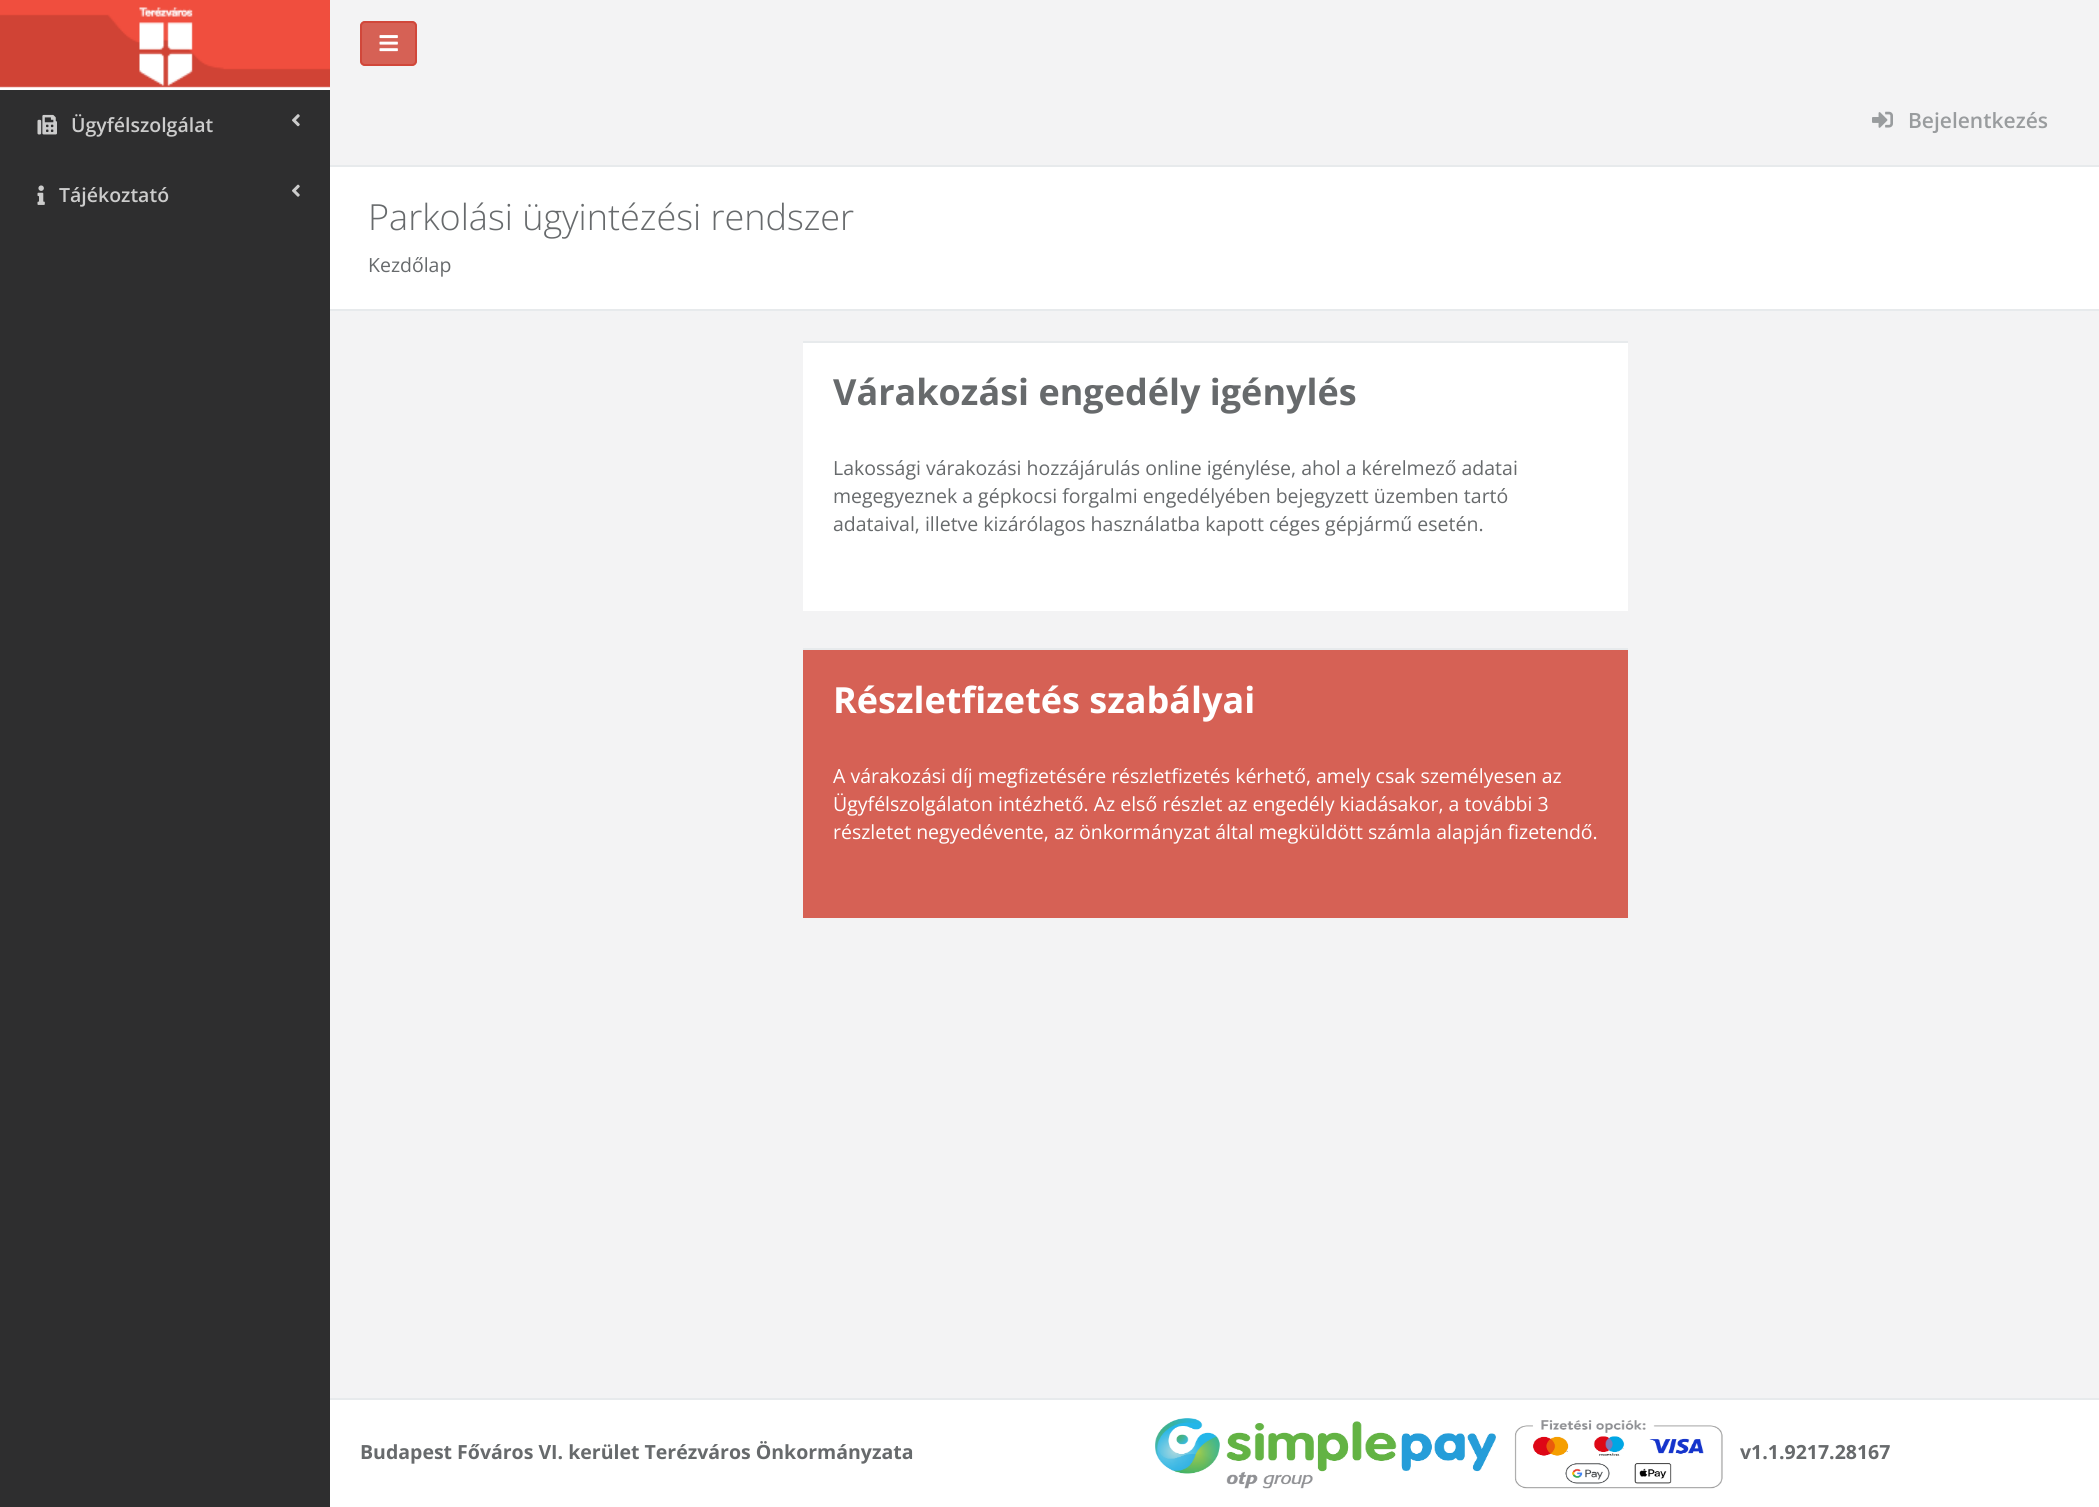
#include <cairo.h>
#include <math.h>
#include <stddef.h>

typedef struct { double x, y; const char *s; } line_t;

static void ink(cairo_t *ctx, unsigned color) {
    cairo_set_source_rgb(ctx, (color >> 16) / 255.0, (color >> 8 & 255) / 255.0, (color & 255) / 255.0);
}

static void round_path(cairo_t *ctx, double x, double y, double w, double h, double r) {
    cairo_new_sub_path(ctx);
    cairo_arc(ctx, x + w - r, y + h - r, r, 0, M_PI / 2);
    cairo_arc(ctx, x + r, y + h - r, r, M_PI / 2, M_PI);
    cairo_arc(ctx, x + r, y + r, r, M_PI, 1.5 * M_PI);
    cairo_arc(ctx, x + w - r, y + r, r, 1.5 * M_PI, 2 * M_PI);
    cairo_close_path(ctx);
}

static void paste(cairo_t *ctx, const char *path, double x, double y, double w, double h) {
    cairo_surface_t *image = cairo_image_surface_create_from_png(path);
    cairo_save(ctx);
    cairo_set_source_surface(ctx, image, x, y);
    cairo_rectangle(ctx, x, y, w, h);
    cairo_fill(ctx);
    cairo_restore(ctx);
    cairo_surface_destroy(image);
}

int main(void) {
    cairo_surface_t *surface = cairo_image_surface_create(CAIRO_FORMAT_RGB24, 2099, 1507);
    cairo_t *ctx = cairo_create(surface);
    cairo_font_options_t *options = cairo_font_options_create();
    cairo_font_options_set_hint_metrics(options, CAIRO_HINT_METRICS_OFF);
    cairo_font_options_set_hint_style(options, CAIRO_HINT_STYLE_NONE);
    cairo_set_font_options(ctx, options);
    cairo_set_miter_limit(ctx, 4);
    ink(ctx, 0x2E2E2F);
    cairo_paint(ctx);
    paste(ctx, "media/1.png", 0, 0, 330, 90);
    paste(ctx, "media/2.png", 37, 114, 20, 21);
    cairo_select_font_face(ctx, "Open Sans SemiBold", CAIRO_FONT_SLANT_NORMAL, CAIRO_FONT_WEIGHT_NORMAL);
    cairo_set_font_size(ctx, 19.5);
    ink(ctx, 0xCCCCCC);
    cairo_move_to(ctx, 71, 132);
    cairo_show_text(ctx, "Ügyfélszolgálat");
    paste(ctx, "media/3.png", 292, 114, 8, 13);
    paste(ctx, "media/4.png", 37, 185, 8, 20);
    cairo_move_to(ctx, 59, 202);
    cairo_show_text(ctx, "Tájékoztató");
    paste(ctx, "media/5.png", 292, 184, 8, 13);
    ink(ctx, 0xF3F3F4);
    cairo_rectangle(ctx, 330, 0, 1769, 1398);
    cairo_fill(ctx);
    ink(ctx, 0xE7EAEC);
    cairo_rectangle(ctx, 330, 165, 1769, 2);
    cairo_fill(ctx);
    ink(ctx, 0xD66155);
    round_path(ctx, 360, 21, 57, 45, 5);
    cairo_fill(ctx);
    round_path(ctx, 361, 22, 55, 43, 4);
    cairo_set_source_rgba(ctx, 0.816, 0.263, 0.208, 0.83);
    cairo_stroke(ctx);
    paste(ctx, "media/6.png", 379, 35, 19, 17);
    paste(ctx, "media/7.png", 1872, 111, 21, 17);
    cairo_set_font_size(ctx, 21);
    ink(ctx, 0x999C9E);
    cairo_move_to(ctx, 1908, 128);
    cairo_show_text(ctx, "Bejelentkezés");
    ink(ctx, 0xFFFFFF);
    cairo_rectangle(ctx, 330, 167, 1769, 142);
    cairo_fill(ctx);
    ink(ctx, 0xE7EAEC);
    cairo_rectangle(ctx, 330, 309, 1769, 2);
    cairo_fill(ctx);
    cairo_select_font_face(ctx, "Open Sans Light", CAIRO_FONT_SLANT_NORMAL, CAIRO_FONT_WEIGHT_NORMAL);
    cairo_set_font_size(ctx, 36);
    ink(ctx, 0x676A6C);
    cairo_move_to(ctx, 368, 230);
    cairo_show_text(ctx, "Parkolási ügyintézési rendszer");
    cairo_select_font_face(ctx, "Open Sans", CAIRO_FONT_SLANT_NORMAL, CAIRO_FONT_WEIGHT_NORMAL);
    cairo_set_font_size(ctx, 19.5);
    cairo_move_to(ctx, 368, 272);
    cairo_show_text(ctx, "Kezdőlap");
    ink(ctx, 0xFFFFFF);
    cairo_rectangle(ctx, 803, 343, 825, 268);
    cairo_fill(ctx);
    ink(ctx, 0xE7EAEC);
    cairo_rectangle(ctx, 803, 341, 825, 2);
    cairo_fill(ctx);
    cairo_select_font_face(ctx, "Open Sans", CAIRO_FONT_SLANT_NORMAL, CAIRO_FONT_WEIGHT_BOLD);
    cairo_set_font_size(ctx, 36);
    ink(ctx, 0x676A6C);
    cairo_move_to(ctx, 833, 405);
    cairo_show_text(ctx, "Várakozási engedély igénylés");
    cairo_select_font_face(ctx, "Open Sans", CAIRO_FONT_SLANT_NORMAL, CAIRO_FONT_WEIGHT_NORMAL);
    cairo_set_font_size(ctx, 19.5);
    {
        static const line_t items[] = {
            {833, 475, "Lakossági várakozási hozzájárulás online igénylése, ahol a kérelmező adatai"},
            {833, 503, "megegyeznek a gépkocsi forgalmi engedélyében bejegyzett üzemben tartó"},
            {833, 531, "adataival, illetve kizárólagos használatba kapott céges gépjármű esetén."},
        };
        for (size_t i = 0; i < sizeof items / sizeof *items; i++) {
            cairo_move_to(ctx, items[i].x, items[i].y);
            cairo_show_text(ctx, items[i].s);
        }
    }
    ink(ctx, 0xD66155);
    cairo_rectangle(ctx, 803, 650, 825, 268);
    cairo_fill(ctx);
    ink(ctx, 0xE7EAEC);
    cairo_rectangle(ctx, 803, 648, 825, 2);
    cairo_fill(ctx);
    cairo_select_font_face(ctx, "Open Sans", CAIRO_FONT_SLANT_NORMAL, CAIRO_FONT_WEIGHT_BOLD);
    cairo_set_font_size(ctx, 36);
    ink(ctx, 0xFFFFFF);
    cairo_move_to(ctx, 833, 713);
    cairo_show_text(ctx, "Részletfizetés szabályai");
    cairo_select_font_face(ctx, "Open Sans", CAIRO_FONT_SLANT_NORMAL, CAIRO_FONT_WEIGHT_NORMAL);
    cairo_set_font_size(ctx, 19.5);
    {
        static const line_t items[] = {
            {833, 783, "A várakozási díj megfizetésére részletfizetés kérhető, amely csak személyesen az"},
            {833, 811, "Ügyfélszolgálaton intézhető. Az első részlet az engedély kiadásakor, a további 3"},
            {833, 839, "részletet negyedévente, az önkormányzat által megküldött számla alapján fizetendő."},
        };
        for (size_t i = 0; i < sizeof items / sizeof *items; i++) {
            cairo_move_to(ctx, items[i].x, items[i].y);
            cairo_show_text(ctx, items[i].s);
        }
    }
    cairo_rectangle(ctx, 330, 1400, 1769, 107);
    cairo_fill(ctx);
    ink(ctx, 0xE7EAEC);
    cairo_rectangle(ctx, 330, 1398, 1769, 2);
    cairo_fill(ctx);
    cairo_select_font_face(ctx, "Open Sans", CAIRO_FONT_SLANT_NORMAL, CAIRO_FONT_WEIGHT_BOLD);
    ink(ctx, 0x676A6C);
    cairo_move_to(ctx, 360, 1459);
    cairo_show_text(ctx, "Budapest Főváros VI. kerület Terézváros Önkormányzata");
    paste(ctx, "media/8.png", 1155, 1418, 568, 71);
    cairo_move_to(ctx, 1740, 1459);
    cairo_show_text(ctx, "v1.1.9217.28167");
    cairo_surface_write_to_png(surface, "image.png");
    cairo_font_options_destroy(options);
    cairo_destroy(ctx);
    cairo_surface_destroy(surface);
    return 0;
}
